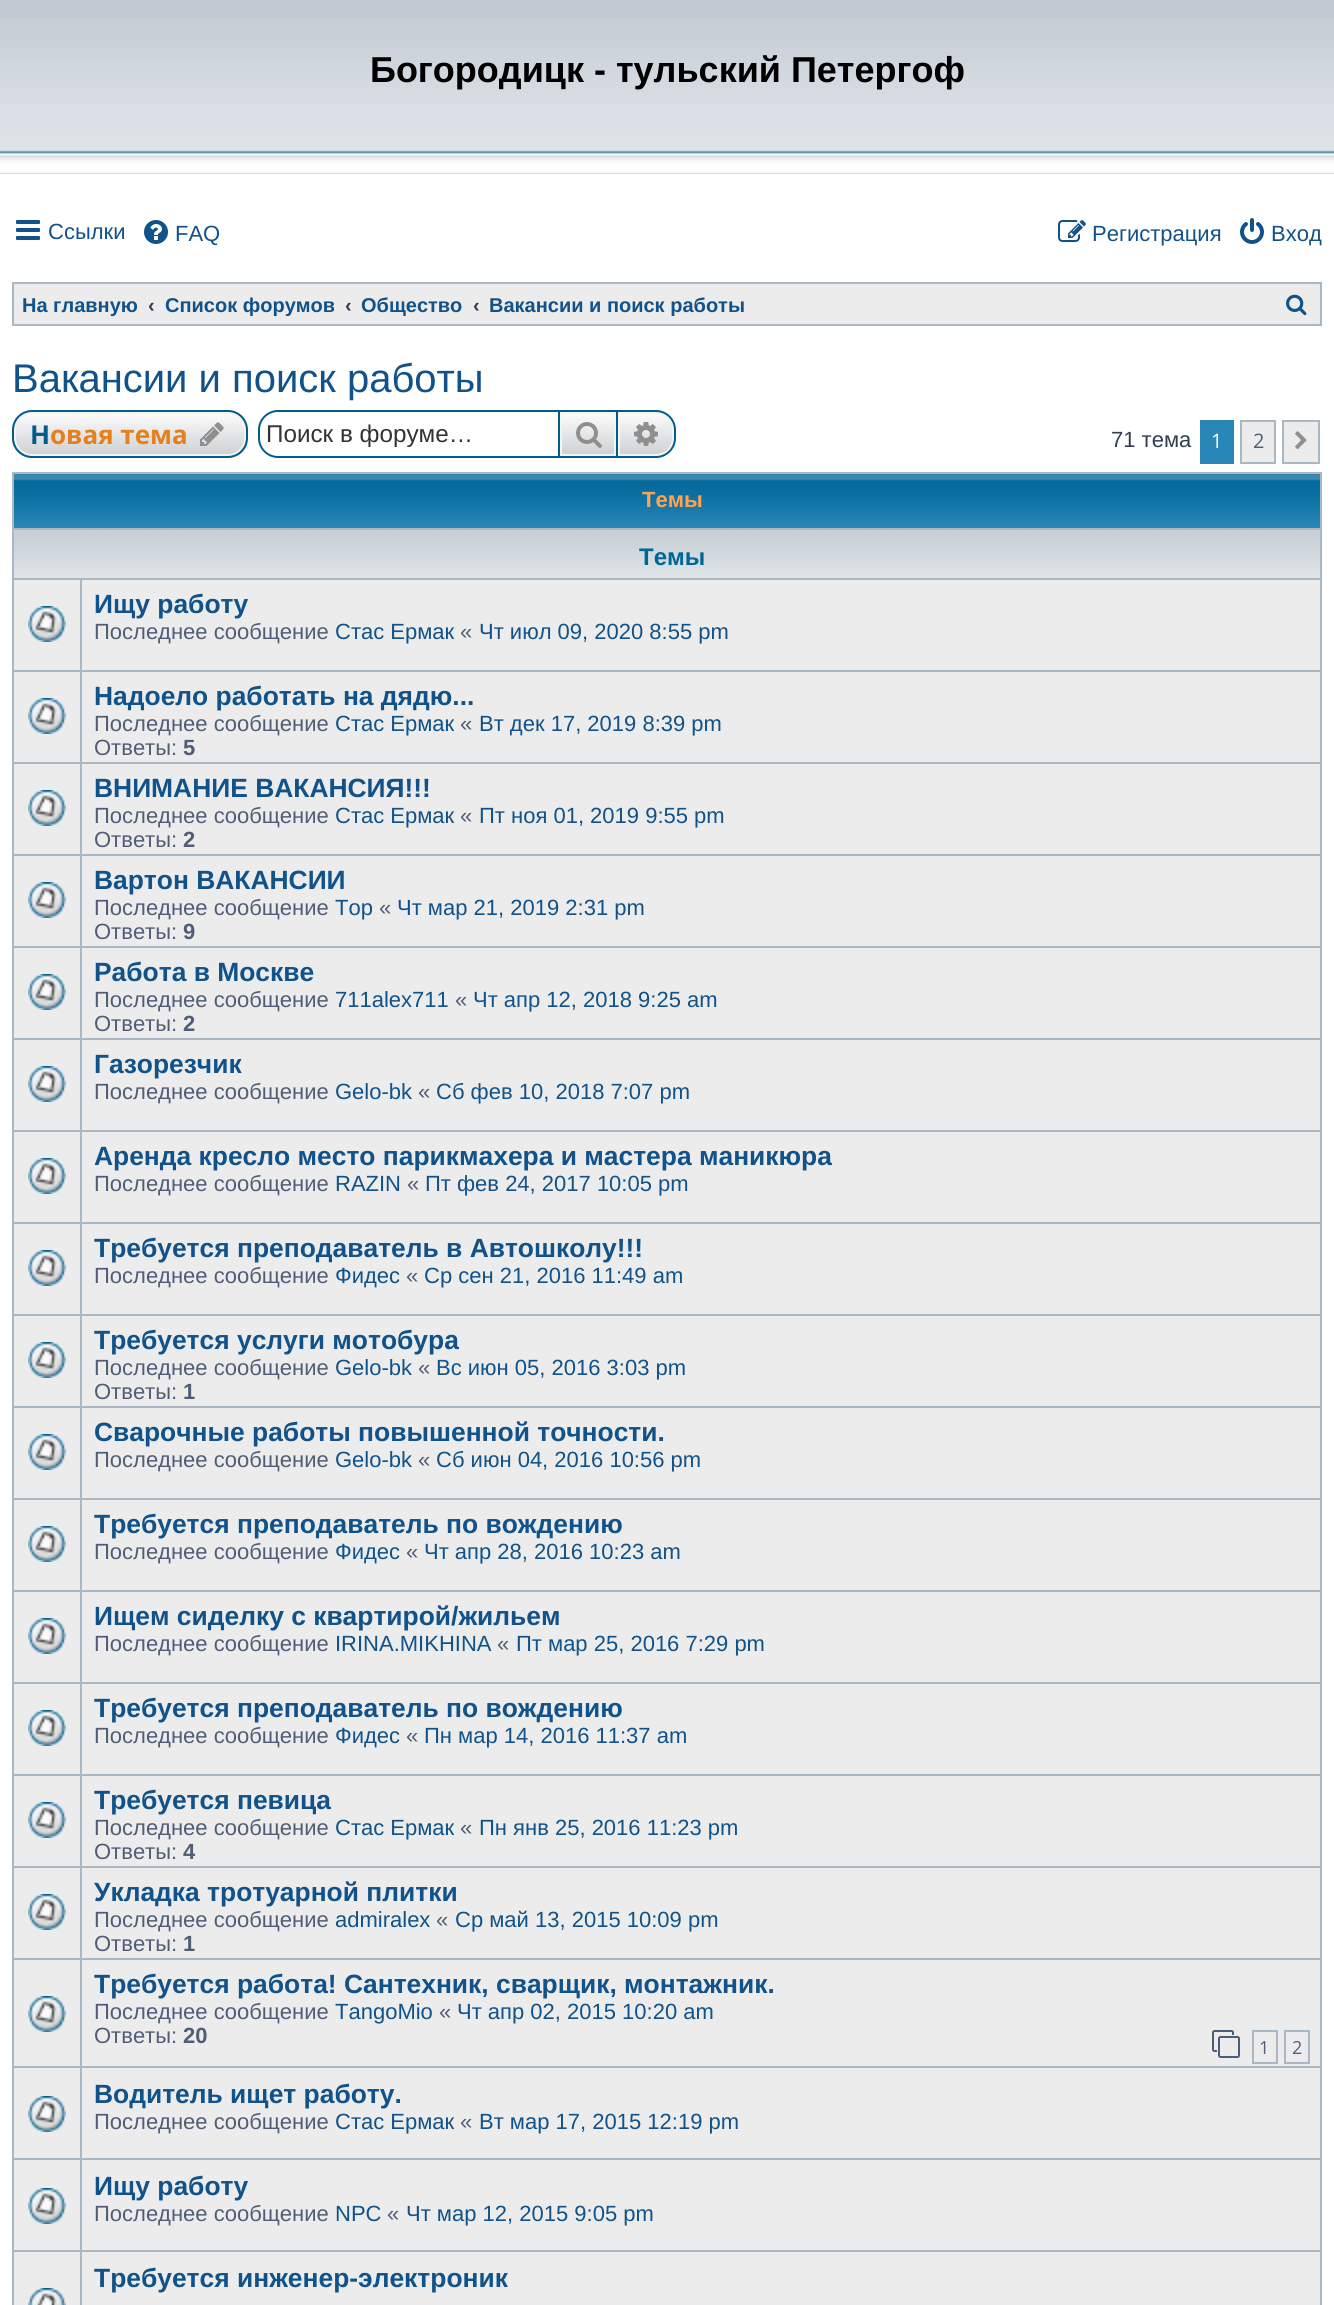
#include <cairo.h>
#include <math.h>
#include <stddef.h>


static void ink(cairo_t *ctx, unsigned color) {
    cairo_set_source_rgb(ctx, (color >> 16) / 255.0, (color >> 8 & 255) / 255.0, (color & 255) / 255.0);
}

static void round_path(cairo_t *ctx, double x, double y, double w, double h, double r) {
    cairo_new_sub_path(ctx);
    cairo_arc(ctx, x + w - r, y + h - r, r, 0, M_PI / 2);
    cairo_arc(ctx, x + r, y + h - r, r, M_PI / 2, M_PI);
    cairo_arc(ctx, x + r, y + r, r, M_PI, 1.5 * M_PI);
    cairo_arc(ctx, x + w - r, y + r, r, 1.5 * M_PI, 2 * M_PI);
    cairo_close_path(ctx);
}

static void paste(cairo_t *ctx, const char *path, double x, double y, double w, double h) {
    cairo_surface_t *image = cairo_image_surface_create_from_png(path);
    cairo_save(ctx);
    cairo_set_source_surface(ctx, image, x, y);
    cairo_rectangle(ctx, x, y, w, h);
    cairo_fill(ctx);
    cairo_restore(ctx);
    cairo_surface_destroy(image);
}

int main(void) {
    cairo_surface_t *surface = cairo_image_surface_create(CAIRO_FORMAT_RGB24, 1334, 2305);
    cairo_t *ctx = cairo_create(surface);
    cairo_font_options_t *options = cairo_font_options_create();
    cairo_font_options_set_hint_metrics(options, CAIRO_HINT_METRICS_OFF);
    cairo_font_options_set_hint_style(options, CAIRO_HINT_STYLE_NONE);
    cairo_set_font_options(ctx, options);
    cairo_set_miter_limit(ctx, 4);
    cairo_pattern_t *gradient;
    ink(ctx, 0xFFFFFF);
    cairo_paint(ctx);
    ink(ctx, 0xC1CAD2);
    cairo_rectangle(ctx, 0, 0, 1334, 18);
    cairo_fill(ctx);
    paste(ctx, "media/1.png", 0, 18, 1334, 156);
    cairo_select_font_face(ctx, "Liberation Sans", CAIRO_FONT_SLANT_NORMAL, CAIRO_FONT_WEIGHT_BOLD);
    cairo_set_font_size(ctx, 36);
    ink(ctx, 0x000000);
    cairo_move_to(ctx, 370, 82);
    cairo_show_text(ctx, "Богородицк - тульский Петергоф");
    paste(ctx, "media/2.png", 16, 220, 24, 20);
    cairo_select_font_face(ctx, "Liberation Sans", CAIRO_FONT_SLANT_NORMAL, CAIRO_FONT_WEIGHT_NORMAL);
    cairo_set_font_size(ctx, 22);
    ink(ctx, 0x105289);
    cairo_move_to(ctx, 48, 239);
    cairo_show_text(ctx, "Ссылки");
    paste(ctx, "media/3.png", 144, 220, 24, 24);
    cairo_move_to(ctx, 175, 241);
    cairo_show_text(ctx, "FAQ");
    paste(ctx, "media/4.png", 1058, 220, 28, 22);
    cairo_move_to(ctx, 1092, 241);
    cairo_show_text(ctx, "Регистрация");
    paste(ctx, "media/5.png", 1240, 218, 24, 26);
    cairo_move_to(ctx, 1271, 241);
    cairo_show_text(ctx, "Вход");
    ink(ctx, 0xECECEC);
    cairo_rectangle(ctx, 13, 283, 1308, 42);
    cairo_fill_preserve(ctx);
    ink(ctx, 0xA9B8C2);
    cairo_stroke(ctx);
    cairo_select_font_face(ctx, "Liberation Sans", CAIRO_FONT_SLANT_NORMAL, CAIRO_FONT_WEIGHT_BOLD);
    cairo_set_font_size(ctx, 20);
    ink(ctx, 0x105289);
    cairo_move_to(ctx, 22, 312);
    cairo_show_text(ctx, "На главную");
    ink(ctx, 0x323D4F);
    cairo_move_to(ctx, 148, 312);
    cairo_show_text(ctx, "‹");
    cairo_save(ctx);
    cairo_rectangle(ctx, 164, 294, 170, 22);
    cairo_clip(ctx);
    ink(ctx, 0x105289);
    cairo_move_to(ctx, 165, 312);
    cairo_show_text(ctx, "Список форумов");
    cairo_restore(ctx);
    cairo_move_to(ctx, 345, 312);
    cairo_show_text(ctx, "‹");
    ink(ctx, 0x105289);
    cairo_move_to(ctx, 361, 312);
    cairo_show_text(ctx, "Общество");
    ink(ctx, 0x323D4F);
    cairo_move_to(ctx, 473, 312);
    cairo_show_text(ctx, "‹");
    cairo_save(ctx);
    cairo_rectangle(ctx, 490, 294, 256, 22);
    cairo_clip(ctx);
    ink(ctx, 0x105289);
    cairo_move_to(ctx, 489, 312);
    cairo_show_text(ctx, "Вакансии и поиск работы");
    cairo_restore(ctx);
    paste(ctx, "media/6.png", 1286, 294, 21, 22);
    cairo_select_font_face(ctx, "Liberation Sans", CAIRO_FONT_SLANT_NORMAL, CAIRO_FONT_WEIGHT_NORMAL);
    cairo_set_font_size(ctx, 40);
    ink(ctx, 0x105289);
    cairo_move_to(ctx, 12, 392);
    cairo_show_text(ctx, "Вакансии и поиск работы");
    cairo_save(ctx);
    round_path(ctx, 12, 410, 236, 48, 20);
    cairo_clip(ctx);
    gradient = cairo_pattern_create_linear(130, 412, 130, 456);
    cairo_pattern_add_color_stop_rgba(gradient, 0, 0.992, 0.992, 0.992, 1);
    cairo_pattern_add_color_stop_rgba(gradient, 1, 0.804, 0.812, 0.82, 1);
    cairo_set_source(ctx, gradient);
    cairo_pattern_destroy(gradient);
    cairo_rectangle(ctx, 12, 412, 236, 44);
    cairo_fill(ctx);
    cairo_restore(ctx);
    round_path(ctx, 15, 413, 230, 42, 17);
    ink(ctx, 0xF4F4F4);
    cairo_stroke(ctx);
    round_path(ctx, 13, 411, 234, 46, 19);
    ink(ctx, 0x005C8B);
    cairo_stroke(ctx);
    cairo_select_font_face(ctx, "Noto Sans", CAIRO_FONT_SLANT_NORMAL, CAIRO_FONT_WEIGHT_BOLD);
    cairo_set_font_size(ctx, 26);
    cairo_move_to(ctx, 30, 444);
    cairo_show_text(ctx, "Н");
    cairo_select_font_face(ctx, "Open Sans", CAIRO_FONT_SLANT_NORMAL, CAIRO_FONT_WEIGHT_BOLD);
    ink(ctx, 0xE5801C);
    cairo_move_to(ctx, 50, 444);
    cairo_show_text(ctx, "овая тема");
    paste(ctx, "media/7.png", 200, 422, 24, 24);
    ink(ctx, 0x005C8B);
    cairo_set_fill_rule(ctx, CAIRO_FILL_RULE_EVEN_ODD);
    cairo_new_path(ctx);
    cairo_move_to(ctx, 278, 410);
    cairo_line_to(ctx, 558, 410);
    cairo_line_to(ctx, 558, 458);
    cairo_line_to(ctx, 278, 458);
    cairo_curve_to(ctx, 267, 458, 258, 449, 258, 438);
    cairo_line_to(ctx, 258, 430);
    cairo_curve_to(ctx, 258, 419, 267, 410, 278, 410);
    cairo_close_path(ctx);
    cairo_move_to(ctx, 278, 412);
    cairo_line_to(ctx, 558, 412);
    cairo_line_to(ctx, 558, 456);
    cairo_line_to(ctx, 278, 456);
    cairo_curve_to(ctx, 268, 456, 260, 448, 260, 438);
    cairo_line_to(ctx, 260, 430);
    cairo_curve_to(ctx, 260, 420, 268, 412, 278, 412);
    cairo_close_path(ctx);
    cairo_fill(ctx);
    cairo_select_font_face(ctx, "Liberation Sans", CAIRO_FONT_SLANT_NORMAL, CAIRO_FONT_WEIGHT_NORMAL);
    cairo_set_font_size(ctx, 24.25);
    ink(ctx, 0x333333);
    cairo_move_to(ctx, 266, 442);
    cairo_show_text(ctx, "Поиск в форуме…");
    gradient = cairo_pattern_create_linear(588, 412, 588, 456);
    cairo_pattern_add_color_stop_rgba(gradient, 0, 0.992, 0.992, 0.992, 1);
    cairo_pattern_add_color_stop_rgba(gradient, 1, 0.804, 0.812, 0.82, 1);
    cairo_set_source(ctx, gradient);
    cairo_pattern_destroy(gradient);
    cairo_rectangle(ctx, 562, 414, 52, 40);
    cairo_fill(ctx);
    cairo_rectangle(ctx, 561, 413, 54, 42);
    ink(ctx, 0xF4F4F4);
    cairo_stroke(ctx);
    cairo_rectangle(ctx, 559, 411, 58, 46);
    ink(ctx, 0x005C8B);
    cairo_stroke(ctx);
    paste(ctx, "media/8.png", 576, 422, 26, 26);
    gradient = cairo_pattern_create_linear(646, 412, 646, 456);
    cairo_pattern_add_color_stop_rgba(gradient, 0, 0.992, 0.992, 0.992, 1);
    cairo_pattern_add_color_stop_rgba(gradient, 1, 0.804, 0.812, 0.82, 1);
    cairo_set_source(ctx, gradient);
    cairo_pattern_destroy(gradient);
    cairo_new_path(ctx);
    cairo_move_to(ctx, 619, 413);
    cairo_line_to(ctx, 656, 413);
    cairo_curve_to(ctx, 665.5, 413, 673, 420.5, 673, 430);
    cairo_line_to(ctx, 673, 438);
    cairo_curve_to(ctx, 673, 447.5, 665.5, 455, 656, 455);
    cairo_line_to(ctx, 619, 455);
    cairo_close_path(ctx);
    cairo_fill_preserve(ctx);
    ink(ctx, 0xF4F4F4);
    cairo_stroke(ctx);
    ink(ctx, 0x005C8B);
    cairo_new_path(ctx);
    cairo_move_to(ctx, 618, 410);
    cairo_line_to(ctx, 656, 410);
    cairo_curve_to(ctx, 667, 410, 676, 419, 676, 430);
    cairo_line_to(ctx, 676, 438);
    cairo_curve_to(ctx, 676, 449, 667, 458, 656, 458);
    cairo_line_to(ctx, 618, 458);
    cairo_close_path(ctx);
    cairo_move_to(ctx, 618, 412);
    cairo_line_to(ctx, 656, 412);
    cairo_curve_to(ctx, 666, 412, 674, 420, 674, 430);
    cairo_line_to(ctx, 674, 438);
    cairo_curve_to(ctx, 674, 448, 666, 456, 656, 456);
    cairo_line_to(ctx, 618, 456);
    cairo_close_path(ctx);
    cairo_fill(ctx);
    paste(ctx, "media/9.png", 634, 422, 24, 24);
    cairo_set_font_size(ctx, 22);
    ink(ctx, 0x323D4F);
    cairo_move_to(ctx, 1111, 447);
    cairo_show_text(ctx, "71 тема");
    ink(ctx, 0x2887B6);
    cairo_rectangle(ctx, 1200, 420, 34, 44);
    cairo_fill(ctx);
    cairo_select_font_face(ctx, "Open Sans", CAIRO_FONT_SLANT_NORMAL, CAIRO_FONT_WEIGHT_NORMAL);
    cairo_set_font_size(ctx, 20);
    ink(ctx, 0xFFFFFF);
    cairo_move_to(ctx, 1211, 448);
    cairo_show_text(ctx, "1");
    ink(ctx, 0xECECEC);
    cairo_rectangle(ctx, 1241, 421, 34, 42);
    cairo_fill_preserve(ctx);
    ink(ctx, 0xA9B8C2);
    cairo_stroke(ctx);
    ink(ctx, 0x515D77);
    cairo_move_to(ctx, 1253, 448);
    cairo_show_text(ctx, "2");
    ink(ctx, 0xECECEC);
    cairo_rectangle(ctx, 1283, 421, 36, 42);
    cairo_fill_preserve(ctx);
    ink(ctx, 0xA9B8C2);
    cairo_stroke(ctx);
    paste(ctx, "media/10.png", 1295, 431, 12, 19);
    paste(ctx, "media/11.png", 14, 474, 1306, 54);
    cairo_rectangle(ctx, 13, 473, 1308, 56);
    cairo_stroke(ctx);
    cairo_select_font_face(ctx, "Liberation Sans", CAIRO_FONT_SLANT_NORMAL, CAIRO_FONT_WEIGHT_BOLD);
    cairo_set_font_size(ctx, 22);
    ink(ctx, 0xFFA34F);
    cairo_move_to(ctx, 642, 507);
    cairo_show_text(ctx, "Темы");
    paste(ctx, "media/12.png", 14, 530, 1306, 48);
    ink(ctx, 0xA9B8C2);
    cairo_rectangle(ctx, 1320, 530, 2, 1775);
    cairo_fill(ctx);
    cairo_rectangle(ctx, 12, 530, 2, 1775);
    cairo_fill(ctx);
    cairo_set_font_size(ctx, 24);
    ink(ctx, 0x006597);
    cairo_move_to(ctx, 639, 565);
    cairo_show_text(ctx, "Темы");
    ink(ctx, 0xECECEC);
    cairo_rectangle(ctx, 14, 580, 1306, 1725);
    cairo_fill(ctx);
    ink(ctx, 0xA9B8C2);
    cairo_rectangle(ctx, 14, 578, 1306, 2);
    cairo_fill(ctx);
    paste(ctx, "media/13.png", 28, 606, 38, 36);
    cairo_rectangle(ctx, 80, 580, 2, 90);
    cairo_fill(ctx);
    cairo_set_font_size(ctx, 26.4);
    ink(ctx, 0x105289);
    cairo_move_to(ctx, 94, 613);
    cairo_show_text(ctx, "Ищу работу");
    cairo_select_font_face(ctx, "Liberation Sans", CAIRO_FONT_SLANT_NORMAL, CAIRO_FONT_WEIGHT_NORMAL);
    cairo_set_font_size(ctx, 22);
    ink(ctx, 0x515D77);
    cairo_move_to(ctx, 94, 639);
    cairo_show_text(ctx, "Последнее сообщение");
    ink(ctx, 0x105289);
    cairo_move_to(ctx, 335, 639);
    cairo_show_text(ctx, "Стас Ермак");
    ink(ctx, 0x515D77);
    cairo_move_to(ctx, 460, 639);
    cairo_show_text(ctx, "«");
    ink(ctx, 0x105289);
    cairo_move_to(ctx, 479, 639);
    cairo_show_text(ctx, "Чт июл 09, 2020 8:55 pm");
    ink(ctx, 0xA9B8C2);
    cairo_rectangle(ctx, 14, 670, 1306, 2);
    cairo_fill(ctx);
    paste(ctx, "media/13.png", 28, 698, 38, 36);
    cairo_rectangle(ctx, 80, 672, 2, 90);
    cairo_fill(ctx);
    cairo_select_font_face(ctx, "Liberation Sans", CAIRO_FONT_SLANT_NORMAL, CAIRO_FONT_WEIGHT_BOLD);
    cairo_set_font_size(ctx, 26.4);
    ink(ctx, 0x105289);
    cairo_move_to(ctx, 94, 705);
    cairo_show_text(ctx, "Надоело работать на дядю...");
    cairo_select_font_face(ctx, "Liberation Sans", CAIRO_FONT_SLANT_NORMAL, CAIRO_FONT_WEIGHT_NORMAL);
    cairo_set_font_size(ctx, 22);
    ink(ctx, 0x515D77);
    cairo_move_to(ctx, 94, 731);
    cairo_show_text(ctx, "Последнее сообщение");
    ink(ctx, 0x105289);
    cairo_move_to(ctx, 335, 731);
    cairo_show_text(ctx, "Стас Ермак");
    ink(ctx, 0x515D77);
    cairo_move_to(ctx, 460, 731);
    cairo_show_text(ctx, "«");
    ink(ctx, 0x105289);
    cairo_move_to(ctx, 479, 731);
    cairo_show_text(ctx, "Вт дек 17, 2019 8:39 pm");
    ink(ctx, 0x515D77);
    cairo_move_to(ctx, 94, 755);
    cairo_show_text(ctx, "Ответы:");
    cairo_select_font_face(ctx, "Liberation Sans", CAIRO_FONT_SLANT_NORMAL, CAIRO_FONT_WEIGHT_BOLD);
    cairo_move_to(ctx, 183, 755);
    cairo_show_text(ctx, "5");
    ink(ctx, 0xA9B8C2);
    cairo_rectangle(ctx, 14, 762, 1306, 2);
    cairo_fill(ctx);
    paste(ctx, "media/13.png", 28, 790, 38, 36);
    cairo_rectangle(ctx, 80, 764, 2, 90);
    cairo_fill(ctx);
    cairo_set_font_size(ctx, 26.4);
    ink(ctx, 0x105289);
    cairo_move_to(ctx, 94, 797);
    cairo_show_text(ctx, "ВНИМАНИЕ ВАКАНСИЯ!!!");
    cairo_select_font_face(ctx, "Liberation Sans", CAIRO_FONT_SLANT_NORMAL, CAIRO_FONT_WEIGHT_NORMAL);
    cairo_set_font_size(ctx, 22);
    ink(ctx, 0x515D77);
    cairo_move_to(ctx, 94, 823);
    cairo_show_text(ctx, "Последнее сообщение");
    ink(ctx, 0x105289);
    cairo_move_to(ctx, 335, 823);
    cairo_show_text(ctx, "Стас Ермак");
    ink(ctx, 0x515D77);
    cairo_move_to(ctx, 460, 823);
    cairo_show_text(ctx, "«");
    ink(ctx, 0x105289);
    cairo_move_to(ctx, 479, 823);
    cairo_show_text(ctx, "Пт ноя 01, 2019 9:55 pm");
    ink(ctx, 0x515D77);
    cairo_move_to(ctx, 94, 847);
    cairo_show_text(ctx, "Ответы:");
    cairo_select_font_face(ctx, "Liberation Sans", CAIRO_FONT_SLANT_NORMAL, CAIRO_FONT_WEIGHT_BOLD);
    cairo_move_to(ctx, 183, 847);
    cairo_show_text(ctx, "2");
    ink(ctx, 0xA9B8C2);
    cairo_rectangle(ctx, 14, 854, 1306, 2);
    cairo_fill(ctx);
    paste(ctx, "media/13.png", 28, 882, 38, 36);
    cairo_rectangle(ctx, 80, 856, 2, 90);
    cairo_fill(ctx);
    cairo_set_font_size(ctx, 26.4);
    ink(ctx, 0x105289);
    cairo_move_to(ctx, 94, 889);
    cairo_show_text(ctx, "Вартон ВАКАНСИИ");
    cairo_select_font_face(ctx, "Liberation Sans", CAIRO_FONT_SLANT_NORMAL, CAIRO_FONT_WEIGHT_NORMAL);
    cairo_set_font_size(ctx, 22);
    ink(ctx, 0x515D77);
    cairo_move_to(ctx, 94, 915);
    cairo_show_text(ctx, "Последнее сообщение");
    ink(ctx, 0x105289);
    cairo_move_to(ctx, 335, 915);
    cairo_show_text(ctx, "Тор");
    ink(ctx, 0x515D77);
    cairo_move_to(ctx, 379, 915);
    cairo_show_text(ctx, "«");
    ink(ctx, 0x105289);
    cairo_move_to(ctx, 397, 915);
    cairo_show_text(ctx, "Чт мар 21, 2019 2:31 pm");
    ink(ctx, 0x515D77);
    cairo_move_to(ctx, 94, 939);
    cairo_show_text(ctx, "Ответы:");
    cairo_select_font_face(ctx, "Liberation Sans", CAIRO_FONT_SLANT_NORMAL, CAIRO_FONT_WEIGHT_BOLD);
    cairo_move_to(ctx, 183, 939);
    cairo_show_text(ctx, "9");
    ink(ctx, 0xA9B8C2);
    cairo_rectangle(ctx, 14, 946, 1306, 2);
    cairo_fill(ctx);
    paste(ctx, "media/13.png", 28, 974, 38, 36);
    cairo_rectangle(ctx, 80, 948, 2, 90);
    cairo_fill(ctx);
    cairo_set_font_size(ctx, 26.4);
    ink(ctx, 0x105289);
    cairo_move_to(ctx, 94, 981);
    cairo_show_text(ctx, "Работа в Москве");
    cairo_select_font_face(ctx, "Liberation Sans", CAIRO_FONT_SLANT_NORMAL, CAIRO_FONT_WEIGHT_NORMAL);
    cairo_set_font_size(ctx, 22);
    ink(ctx, 0x515D77);
    cairo_move_to(ctx, 94, 1007);
    cairo_show_text(ctx, "Последнее сообщение");
    ink(ctx, 0x105289);
    cairo_move_to(ctx, 335, 1007);
    cairo_show_text(ctx, "711alex711");
    ink(ctx, 0x515D77);
    cairo_move_to(ctx, 455, 1007);
    cairo_show_text(ctx, "«");
    ink(ctx, 0x105289);
    cairo_move_to(ctx, 473, 1007);
    cairo_show_text(ctx, "Чт апр 12, 2018 9:25 am");
    ink(ctx, 0x515D77);
    cairo_move_to(ctx, 94, 1031);
    cairo_show_text(ctx, "Ответы:");
    cairo_select_font_face(ctx, "Liberation Sans", CAIRO_FONT_SLANT_NORMAL, CAIRO_FONT_WEIGHT_BOLD);
    cairo_move_to(ctx, 183, 1031);
    cairo_show_text(ctx, "2");
    ink(ctx, 0xA9B8C2);
    cairo_rectangle(ctx, 14, 1038, 1306, 2);
    cairo_fill(ctx);
    paste(ctx, "media/13.png", 28, 1066, 38, 36);
    cairo_rectangle(ctx, 80, 1040, 2, 90);
    cairo_fill(ctx);
    cairo_set_font_size(ctx, 26.4);
    ink(ctx, 0x105289);
    cairo_move_to(ctx, 94, 1073);
    cairo_show_text(ctx, "Газорезчик");
    cairo_select_font_face(ctx, "Liberation Sans", CAIRO_FONT_SLANT_NORMAL, CAIRO_FONT_WEIGHT_NORMAL);
    cairo_set_font_size(ctx, 22);
    ink(ctx, 0x515D77);
    cairo_move_to(ctx, 94, 1099);
    cairo_show_text(ctx, "Последнее сообщение");
    ink(ctx, 0x105289);
    cairo_move_to(ctx, 335, 1099);
    cairo_show_text(ctx, "Gelo-bk");
    ink(ctx, 0x515D77);
    cairo_move_to(ctx, 418, 1099);
    cairo_show_text(ctx, "«");
    ink(ctx, 0x105289);
    cairo_move_to(ctx, 436, 1099);
    cairo_show_text(ctx, "Сб фев 10, 2018 7:07 pm");
    ink(ctx, 0xA9B8C2);
    cairo_rectangle(ctx, 14, 1130, 1306, 2);
    cairo_fill(ctx);
    paste(ctx, "media/13.png", 28, 1158, 38, 36);
    cairo_rectangle(ctx, 80, 1132, 2, 90);
    cairo_fill(ctx);
    cairo_select_font_face(ctx, "Liberation Sans", CAIRO_FONT_SLANT_NORMAL, CAIRO_FONT_WEIGHT_BOLD);
    cairo_set_font_size(ctx, 26.4);
    ink(ctx, 0x105289);
    cairo_move_to(ctx, 94, 1165);
    cairo_show_text(ctx, "Аренда кресло место парикмахера и мастера маникюра");
    cairo_select_font_face(ctx, "Liberation Sans", CAIRO_FONT_SLANT_NORMAL, CAIRO_FONT_WEIGHT_NORMAL);
    cairo_set_font_size(ctx, 22);
    ink(ctx, 0x515D77);
    cairo_move_to(ctx, 94, 1191);
    cairo_show_text(ctx, "Последнее сообщение");
    ink(ctx, 0x105289);
    cairo_move_to(ctx, 335, 1191);
    cairo_show_text(ctx, "RAZIN");
    ink(ctx, 0x515D77);
    cairo_move_to(ctx, 407, 1191);
    cairo_show_text(ctx, "«");
    ink(ctx, 0x105289);
    cairo_move_to(ctx, 425, 1191);
    cairo_show_text(ctx, "Пт фев 24, 2017 10:05 pm");
    ink(ctx, 0xA9B8C2);
    cairo_rectangle(ctx, 14, 1222, 1306, 2);
    cairo_fill(ctx);
    paste(ctx, "media/13.png", 28, 1250, 38, 36);
    cairo_rectangle(ctx, 80, 1224, 2, 90);
    cairo_fill(ctx);
    cairo_select_font_face(ctx, "Liberation Sans", CAIRO_FONT_SLANT_NORMAL, CAIRO_FONT_WEIGHT_BOLD);
    cairo_set_font_size(ctx, 26.4);
    ink(ctx, 0x105289);
    cairo_move_to(ctx, 94, 1257);
    cairo_show_text(ctx, "Требуется преподаватель в Автошколу!!!");
    cairo_select_font_face(ctx, "Liberation Sans", CAIRO_FONT_SLANT_NORMAL, CAIRO_FONT_WEIGHT_NORMAL);
    cairo_set_font_size(ctx, 22);
    ink(ctx, 0x515D77);
    cairo_move_to(ctx, 94, 1283);
    cairo_show_text(ctx, "Последнее сообщение");
    ink(ctx, 0x105289);
    cairo_move_to(ctx, 335, 1283);
    cairo_show_text(ctx, "Фидес");
    ink(ctx, 0x515D77);
    cairo_move_to(ctx, 406, 1283);
    cairo_show_text(ctx, "«");
    ink(ctx, 0x105289);
    cairo_move_to(ctx, 424, 1283);
    cairo_show_text(ctx, "Ср сен 21, 2016 11:49 am");
    ink(ctx, 0xA9B8C2);
    cairo_rectangle(ctx, 14, 1314, 1306, 2);
    cairo_fill(ctx);
    paste(ctx, "media/13.png", 28, 1342, 38, 36);
    cairo_rectangle(ctx, 80, 1316, 2, 90);
    cairo_fill(ctx);
    cairo_select_font_face(ctx, "Liberation Sans", CAIRO_FONT_SLANT_NORMAL, CAIRO_FONT_WEIGHT_BOLD);
    cairo_set_font_size(ctx, 26.4);
    ink(ctx, 0x105289);
    cairo_move_to(ctx, 94, 1349);
    cairo_show_text(ctx, "Требуется услуги мотобура");
    cairo_select_font_face(ctx, "Liberation Sans", CAIRO_FONT_SLANT_NORMAL, CAIRO_FONT_WEIGHT_NORMAL);
    cairo_set_font_size(ctx, 22);
    ink(ctx, 0x515D77);
    cairo_move_to(ctx, 94, 1375);
    cairo_show_text(ctx, "Последнее сообщение");
    ink(ctx, 0x105289);
    cairo_move_to(ctx, 335, 1375);
    cairo_show_text(ctx, "Gelo-bk");
    ink(ctx, 0x515D77);
    cairo_move_to(ctx, 418, 1375);
    cairo_show_text(ctx, "«");
    ink(ctx, 0x105289);
    cairo_move_to(ctx, 436, 1375);
    cairo_show_text(ctx, "Вс июн 05, 2016 3:03 pm");
    ink(ctx, 0x515D77);
    cairo_move_to(ctx, 94, 1399);
    cairo_show_text(ctx, "Ответы:");
    cairo_select_font_face(ctx, "Liberation Sans", CAIRO_FONT_SLANT_NORMAL, CAIRO_FONT_WEIGHT_BOLD);
    cairo_move_to(ctx, 183, 1399);
    cairo_show_text(ctx, "1");
    ink(ctx, 0xA9B8C2);
    cairo_rectangle(ctx, 14, 1406, 1306, 2);
    cairo_fill(ctx);
    paste(ctx, "media/13.png", 28, 1434, 38, 36);
    cairo_rectangle(ctx, 80, 1408, 2, 90);
    cairo_fill(ctx);
    cairo_set_font_size(ctx, 26.4);
    ink(ctx, 0x105289);
    cairo_move_to(ctx, 94, 1441);
    cairo_show_text(ctx, "Сварочные работы повышенной точности.");
    cairo_select_font_face(ctx, "Liberation Sans", CAIRO_FONT_SLANT_NORMAL, CAIRO_FONT_WEIGHT_NORMAL);
    cairo_set_font_size(ctx, 22);
    ink(ctx, 0x515D77);
    cairo_move_to(ctx, 94, 1467);
    cairo_show_text(ctx, "Последнее сообщение");
    ink(ctx, 0x105289);
    cairo_move_to(ctx, 335, 1467);
    cairo_show_text(ctx, "Gelo-bk");
    ink(ctx, 0x515D77);
    cairo_move_to(ctx, 418, 1467);
    cairo_show_text(ctx, "«");
    ink(ctx, 0x105289);
    cairo_move_to(ctx, 436, 1467);
    cairo_show_text(ctx, "Сб июн 04, 2016 10:56 pm");
    ink(ctx, 0xA9B8C2);
    cairo_rectangle(ctx, 14, 1498, 1306, 2);
    cairo_fill(ctx);
    paste(ctx, "media/13.png", 28, 1526, 38, 36);
    cairo_rectangle(ctx, 80, 1500, 2, 90);
    cairo_fill(ctx);
    cairo_select_font_face(ctx, "Liberation Sans", CAIRO_FONT_SLANT_NORMAL, CAIRO_FONT_WEIGHT_BOLD);
    cairo_set_font_size(ctx, 26.4);
    ink(ctx, 0x105289);
    cairo_move_to(ctx, 94, 1533);
    cairo_show_text(ctx, "Требуется преподаватель по вождению");
    cairo_select_font_face(ctx, "Liberation Sans", CAIRO_FONT_SLANT_NORMAL, CAIRO_FONT_WEIGHT_NORMAL);
    cairo_set_font_size(ctx, 22);
    ink(ctx, 0x515D77);
    cairo_move_to(ctx, 94, 1559);
    cairo_show_text(ctx, "Последнее сообщение");
    ink(ctx, 0x105289);
    cairo_move_to(ctx, 335, 1559);
    cairo_show_text(ctx, "Фидес");
    ink(ctx, 0x515D77);
    cairo_move_to(ctx, 406, 1559);
    cairo_show_text(ctx, "«");
    ink(ctx, 0x105289);
    cairo_move_to(ctx, 424, 1559);
    cairo_show_text(ctx, "Чт апр 28, 2016 10:23 am");
    ink(ctx, 0xA9B8C2);
    cairo_rectangle(ctx, 14, 1590, 1306, 2);
    cairo_fill(ctx);
    paste(ctx, "media/13.png", 28, 1618, 38, 36);
    cairo_rectangle(ctx, 80, 1592, 2, 90);
    cairo_fill(ctx);
    cairo_select_font_face(ctx, "Liberation Sans", CAIRO_FONT_SLANT_NORMAL, CAIRO_FONT_WEIGHT_BOLD);
    cairo_set_font_size(ctx, 26.4);
    ink(ctx, 0x105289);
    cairo_move_to(ctx, 94, 1625);
    cairo_show_text(ctx, "Ищем сиделку с квартирой/жильем");
    cairo_select_font_face(ctx, "Liberation Sans", CAIRO_FONT_SLANT_NORMAL, CAIRO_FONT_WEIGHT_NORMAL);
    cairo_set_font_size(ctx, 22);
    ink(ctx, 0x515D77);
    cairo_move_to(ctx, 94, 1651);
    cairo_show_text(ctx, "Последнее сообщение");
    ink(ctx, 0x105289);
    cairo_move_to(ctx, 335, 1651);
    cairo_show_text(ctx, "IRINA.MIKHINA");
    ink(ctx, 0x515D77);
    cairo_move_to(ctx, 497, 1651);
    cairo_show_text(ctx, "«");
    ink(ctx, 0x105289);
    cairo_move_to(ctx, 516, 1651);
    cairo_show_text(ctx, "Пт мар 25, 2016 7:29 pm");
    ink(ctx, 0xA9B8C2);
    cairo_rectangle(ctx, 14, 1682, 1306, 2);
    cairo_fill(ctx);
    paste(ctx, "media/13.png", 28, 1710, 38, 36);
    cairo_rectangle(ctx, 80, 1684, 2, 90);
    cairo_fill(ctx);
    cairo_select_font_face(ctx, "Liberation Sans", CAIRO_FONT_SLANT_NORMAL, CAIRO_FONT_WEIGHT_BOLD);
    cairo_set_font_size(ctx, 26.4);
    ink(ctx, 0x105289);
    cairo_move_to(ctx, 94, 1717);
    cairo_show_text(ctx, "Требуется преподаватель по вождению");
    cairo_select_font_face(ctx, "Liberation Sans", CAIRO_FONT_SLANT_NORMAL, CAIRO_FONT_WEIGHT_NORMAL);
    cairo_set_font_size(ctx, 22);
    ink(ctx, 0x515D77);
    cairo_move_to(ctx, 94, 1743);
    cairo_show_text(ctx, "Последнее сообщение");
    ink(ctx, 0x105289);
    cairo_move_to(ctx, 335, 1743);
    cairo_show_text(ctx, "Фидес");
    ink(ctx, 0x515D77);
    cairo_move_to(ctx, 406, 1743);
    cairo_show_text(ctx, "«");
    ink(ctx, 0x105289);
    cairo_move_to(ctx, 424, 1743);
    cairo_show_text(ctx, "Пн мар 14, 2016 11:37 am");
    ink(ctx, 0xA9B8C2);
    cairo_rectangle(ctx, 14, 1774, 1306, 2);
    cairo_fill(ctx);
    paste(ctx, "media/13.png", 28, 1802, 38, 36);
    cairo_rectangle(ctx, 80, 1776, 2, 90);
    cairo_fill(ctx);
    cairo_select_font_face(ctx, "Liberation Sans", CAIRO_FONT_SLANT_NORMAL, CAIRO_FONT_WEIGHT_BOLD);
    cairo_set_font_size(ctx, 26.4);
    ink(ctx, 0x105289);
    cairo_move_to(ctx, 94, 1809);
    cairo_show_text(ctx, "Требуется певица");
    cairo_select_font_face(ctx, "Liberation Sans", CAIRO_FONT_SLANT_NORMAL, CAIRO_FONT_WEIGHT_NORMAL);
    cairo_set_font_size(ctx, 22);
    ink(ctx, 0x515D77);
    cairo_move_to(ctx, 94, 1835);
    cairo_show_text(ctx, "Последнее сообщение");
    ink(ctx, 0x105289);
    cairo_move_to(ctx, 335, 1835);
    cairo_show_text(ctx, "Стас Ермак");
    ink(ctx, 0x515D77);
    cairo_move_to(ctx, 460, 1835);
    cairo_show_text(ctx, "«");
    ink(ctx, 0x105289);
    cairo_move_to(ctx, 479, 1835);
    cairo_show_text(ctx, "Пн янв 25, 2016 11:23 pm");
    ink(ctx, 0x515D77);
    cairo_move_to(ctx, 94, 1859);
    cairo_show_text(ctx, "Ответы:");
    cairo_select_font_face(ctx, "Liberation Sans", CAIRO_FONT_SLANT_NORMAL, CAIRO_FONT_WEIGHT_BOLD);
    cairo_move_to(ctx, 183, 1859);
    cairo_show_text(ctx, "4");
    ink(ctx, 0xA9B8C2);
    cairo_rectangle(ctx, 14, 1866, 1306, 2);
    cairo_fill(ctx);
    paste(ctx, "media/13.png", 28, 1894, 38, 36);
    cairo_rectangle(ctx, 80, 1868, 2, 90);
    cairo_fill(ctx);
    cairo_set_font_size(ctx, 26.4);
    ink(ctx, 0x105289);
    cairo_move_to(ctx, 94, 1901);
    cairo_show_text(ctx, "Укладка тротуарной плитки");
    cairo_select_font_face(ctx, "Liberation Sans", CAIRO_FONT_SLANT_NORMAL, CAIRO_FONT_WEIGHT_NORMAL);
    cairo_set_font_size(ctx, 22);
    ink(ctx, 0x515D77);
    cairo_move_to(ctx, 94, 1927);
    cairo_show_text(ctx, "Последнее сообщение");
    ink(ctx, 0x105289);
    cairo_move_to(ctx, 335, 1927);
    cairo_show_text(ctx, "admiralex");
    ink(ctx, 0x515D77);
    cairo_move_to(ctx, 436, 1927);
    cairo_show_text(ctx, "«");
    ink(ctx, 0x105289);
    cairo_move_to(ctx, 455, 1927);
    cairo_show_text(ctx, "Ср май 13, 2015 10:09 pm");
    ink(ctx, 0x515D77);
    cairo_move_to(ctx, 94, 1951);
    cairo_show_text(ctx, "Ответы:");
    cairo_select_font_face(ctx, "Liberation Sans", CAIRO_FONT_SLANT_NORMAL, CAIRO_FONT_WEIGHT_BOLD);
    cairo_move_to(ctx, 183, 1951);
    cairo_show_text(ctx, "1");
    ink(ctx, 0xA9B8C2);
    cairo_rectangle(ctx, 14, 1958, 1306, 2);
    cairo_fill(ctx);
    paste(ctx, "media/13.png", 28, 1996, 38, 36);
    cairo_rectangle(ctx, 80, 1960, 2, 106);
    cairo_fill(ctx);
    cairo_set_font_size(ctx, 26.4);
    ink(ctx, 0x105289);
    cairo_move_to(ctx, 94, 1993);
    cairo_show_text(ctx, "Требуется работа! Сантехник, сварщик, монтажник.");
    cairo_select_font_face(ctx, "Liberation Sans", CAIRO_FONT_SLANT_NORMAL, CAIRO_FONT_WEIGHT_NORMAL);
    cairo_set_font_size(ctx, 22);
    ink(ctx, 0x515D77);
    cairo_move_to(ctx, 94, 2019);
    cairo_show_text(ctx, "Последнее сообщение");
    ink(ctx, 0x105289);
    cairo_move_to(ctx, 335, 2019);
    cairo_show_text(ctx, "TangoMio");
    ink(ctx, 0x515D77);
    cairo_move_to(ctx, 439, 2019);
    cairo_show_text(ctx, "«");
    ink(ctx, 0x105289);
    cairo_move_to(ctx, 457, 2019);
    cairo_show_text(ctx, "Чт апр 02, 2015 10:20 am");
    ink(ctx, 0x515D77);
    cairo_move_to(ctx, 94, 2043);
    cairo_show_text(ctx, "Ответы:");
    cairo_select_font_face(ctx, "Liberation Sans", CAIRO_FONT_SLANT_NORMAL, CAIRO_FONT_WEIGHT_BOLD);
    cairo_move_to(ctx, 183, 2043);
    cairo_show_text(ctx, "20");
    paste(ctx, "media/14.png", 1212, 2030, 28, 28);
    cairo_rectangle(ctx, 1253, 2031, 24, 32);
    ink(ctx, 0xA9B8C2);
    cairo_stroke(ctx);
    cairo_select_font_face(ctx, "Open Sans", CAIRO_FONT_SLANT_NORMAL, CAIRO_FONT_WEIGHT_NORMAL);
    cairo_set_font_size(ctx, 18);
    ink(ctx, 0x515D77);
    cairo_move_to(ctx, 1259, 2054);
    cairo_show_text(ctx, "1");
    cairo_rectangle(ctx, 1285, 2031, 24, 32);
    ink(ctx, 0xA9B8C2);
    cairo_stroke(ctx);
    ink(ctx, 0x515D77);
    cairo_move_to(ctx, 1292, 2054);
    cairo_show_text(ctx, "2");
    ink(ctx, 0xA9B8C2);
    cairo_rectangle(ctx, 14, 2066, 1306, 2);
    cairo_fill(ctx);
    paste(ctx, "media/13.png", 28, 2096, 38, 36);
    cairo_rectangle(ctx, 80, 2068, 2, 90);
    cairo_fill(ctx);
    cairo_select_font_face(ctx, "Liberation Sans", CAIRO_FONT_SLANT_NORMAL, CAIRO_FONT_WEIGHT_BOLD);
    cairo_set_font_size(ctx, 26.4);
    ink(ctx, 0x105289);
    cairo_move_to(ctx, 94, 2103);
    cairo_show_text(ctx, "Водитель ищет работу.");
    cairo_select_font_face(ctx, "Liberation Sans", CAIRO_FONT_SLANT_NORMAL, CAIRO_FONT_WEIGHT_NORMAL);
    cairo_set_font_size(ctx, 22);
    ink(ctx, 0x515D77);
    cairo_move_to(ctx, 94, 2129);
    cairo_show_text(ctx, "Последнее сообщение");
    ink(ctx, 0x105289);
    cairo_move_to(ctx, 335, 2129);
    cairo_show_text(ctx, "Стас Ермак");
    ink(ctx, 0x515D77);
    cairo_move_to(ctx, 460, 2129);
    cairo_show_text(ctx, "«");
    ink(ctx, 0x105289);
    cairo_move_to(ctx, 479, 2129);
    cairo_show_text(ctx, "Вт мар 17, 2015 12:19 pm");
    ink(ctx, 0xA9B8C2);
    cairo_rectangle(ctx, 14, 2158, 1306, 2);
    cairo_fill(ctx);
    paste(ctx, "media/13.png", 28, 2188, 38, 36);
    cairo_rectangle(ctx, 80, 2160, 2, 90);
    cairo_fill(ctx);
    cairo_select_font_face(ctx, "Liberation Sans", CAIRO_FONT_SLANT_NORMAL, CAIRO_FONT_WEIGHT_BOLD);
    cairo_set_font_size(ctx, 26.4);
    ink(ctx, 0x105289);
    cairo_move_to(ctx, 94, 2195);
    cairo_show_text(ctx, "Ищу работу");
    cairo_select_font_face(ctx, "Liberation Sans", CAIRO_FONT_SLANT_NORMAL, CAIRO_FONT_WEIGHT_NORMAL);
    cairo_set_font_size(ctx, 22);
    ink(ctx, 0x515D77);
    cairo_move_to(ctx, 94, 2221);
    cairo_show_text(ctx, "Последнее сообщение");
    ink(ctx, 0x105289);
    cairo_move_to(ctx, 335, 2221);
    cairo_show_text(ctx, "NPC");
    ink(ctx, 0x515D77);
    cairo_move_to(ctx, 387, 2221);
    cairo_show_text(ctx, "«");
    ink(ctx, 0x105289);
    cairo_move_to(ctx, 406, 2221);
    cairo_show_text(ctx, "Чт мар 12, 2015 9:05 pm");
    ink(ctx, 0xA9B8C2);
    cairo_rectangle(ctx, 14, 2250, 1306, 2);
    cairo_fill(ctx);
    paste(ctx, "media/15.png", 28, 2288, 38, 17);
    cairo_rectangle(ctx, 80, 2252, 2, 53);
    cairo_fill(ctx);
    cairo_select_font_face(ctx, "Liberation Sans", CAIRO_FONT_SLANT_NORMAL, CAIRO_FONT_WEIGHT_BOLD);
    cairo_set_font_size(ctx, 26.4);
    ink(ctx, 0x105289);
    cairo_move_to(ctx, 94, 2287);
    cairo_show_text(ctx, "Требуется инженер-электроник");
    cairo_surface_write_to_png(surface, "image.png");
    cairo_font_options_destroy(options);
    cairo_destroy(ctx);
    cairo_surface_destroy(surface);
    return 0;
}
